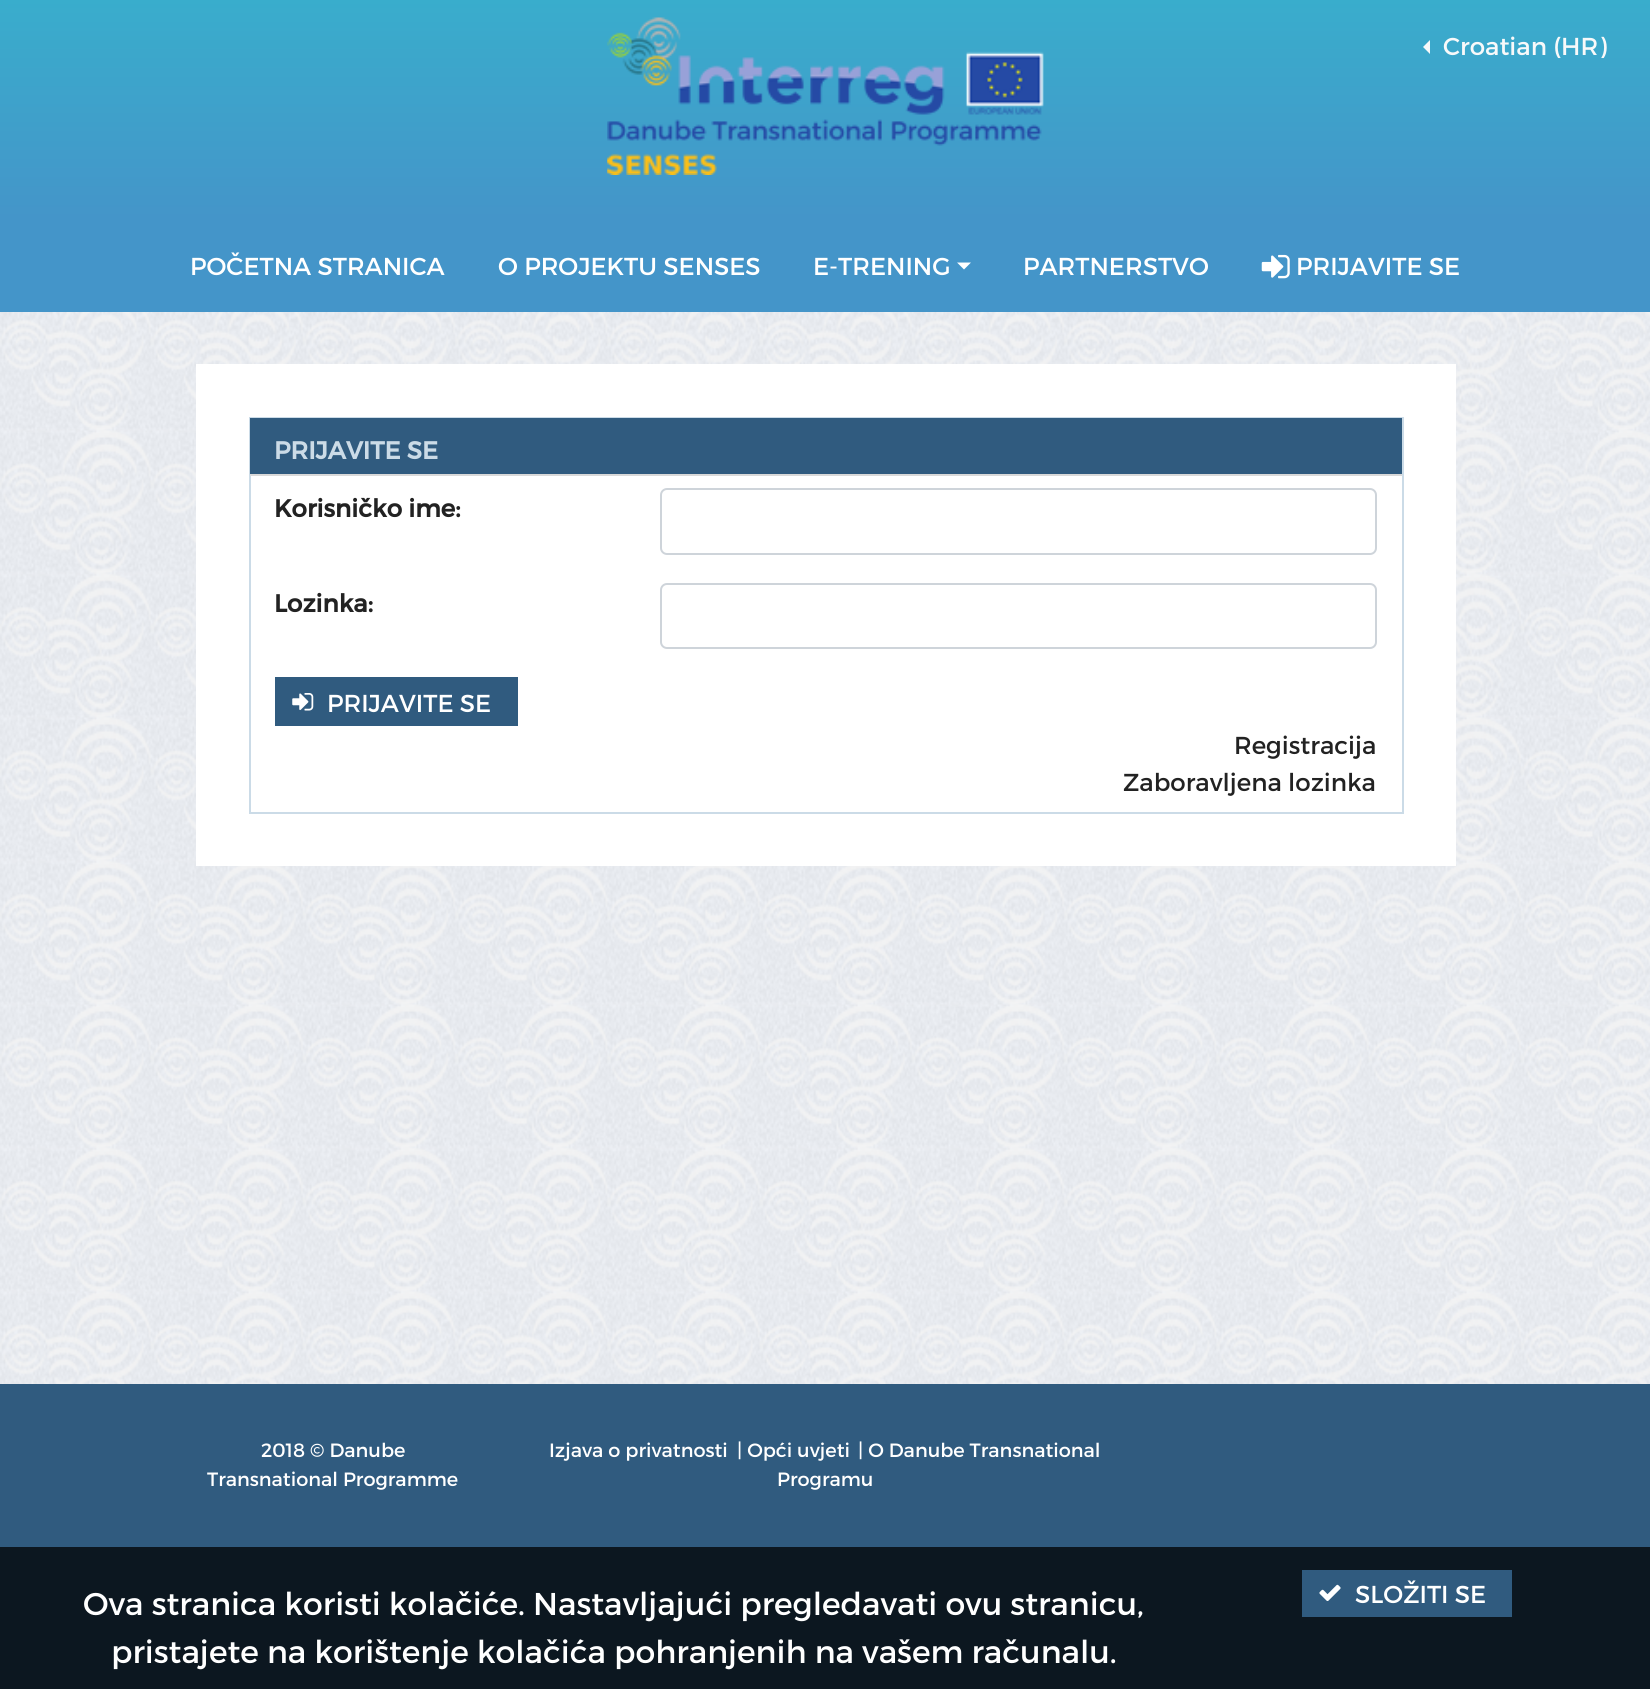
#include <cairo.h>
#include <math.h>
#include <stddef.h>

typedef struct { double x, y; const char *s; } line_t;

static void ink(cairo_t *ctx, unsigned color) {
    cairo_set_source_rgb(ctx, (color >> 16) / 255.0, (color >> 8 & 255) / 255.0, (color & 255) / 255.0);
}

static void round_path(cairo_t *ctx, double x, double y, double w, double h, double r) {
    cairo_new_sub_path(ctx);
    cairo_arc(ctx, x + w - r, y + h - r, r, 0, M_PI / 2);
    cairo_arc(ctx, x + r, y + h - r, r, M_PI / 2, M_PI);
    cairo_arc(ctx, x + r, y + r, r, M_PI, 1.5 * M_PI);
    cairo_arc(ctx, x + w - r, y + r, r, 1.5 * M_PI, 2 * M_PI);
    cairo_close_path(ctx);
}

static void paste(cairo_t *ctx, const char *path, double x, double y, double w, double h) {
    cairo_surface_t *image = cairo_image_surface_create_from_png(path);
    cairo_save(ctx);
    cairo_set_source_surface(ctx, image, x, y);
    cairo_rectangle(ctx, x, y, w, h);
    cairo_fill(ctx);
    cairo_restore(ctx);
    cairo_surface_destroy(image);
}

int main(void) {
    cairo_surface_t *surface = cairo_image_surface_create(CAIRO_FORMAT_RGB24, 1650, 1689);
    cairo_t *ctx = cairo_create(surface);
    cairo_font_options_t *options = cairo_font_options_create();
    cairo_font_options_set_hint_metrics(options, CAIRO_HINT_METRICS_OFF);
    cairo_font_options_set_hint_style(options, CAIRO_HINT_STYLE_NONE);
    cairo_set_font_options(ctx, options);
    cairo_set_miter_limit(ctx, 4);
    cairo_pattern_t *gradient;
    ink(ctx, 0xFFFFFF);
    cairo_paint(ctx);
    paste(ctx, "media/1.png", 0, 312, 1650, 1072);
    gradient = cairo_pattern_create_linear(825, 0, 825, 219);
    cairo_pattern_add_color_stop_rgba(gradient, 0, 0.224, 0.678, 0.8, 1);
    cairo_pattern_add_color_stop_rgba(gradient, 1, 0.267, 0.584, 0.788, 1);
    cairo_set_source(ctx, gradient);
    cairo_pattern_destroy(gradient);
    cairo_rectangle(ctx, 0, 0, 1650, 219);
    cairo_fill(ctx);
    paste(ctx, "media/2.png", 607, 17, 437, 158);
    ink(ctx, 0x4495C9);
    cairo_rectangle(ctx, 0, 219, 1650, 93);
    cairo_fill(ctx);
    ink(ctx, 0xF8F9FA);
    cairo_new_path(ctx);
    cairo_move_to(ctx, 1430, 40);
    cairo_line_to(ctx, 1430, 54);
    cairo_line_to(ctx, 1423, 47);
    cairo_close_path(ctx);
    cairo_fill(ctx);
    cairo_select_font_face(ctx, "Montserrat", CAIRO_FONT_SLANT_NORMAL, CAIRO_FONT_WEIGHT_NORMAL);
    cairo_set_font_size(ctx, 24.5);
    cairo_move_to(ctx, 1443, 55);
    cairo_show_text(ctx, "Croatian (HR)");
    ink(ctx, 0xFFFFFF);
    {
        static const line_t items[] = {
            {190, 275, "POČETNA STRANICA"},
            {498, 275, "O PROJEKTU SENSES"},
            {813, 275, "E-TRENING"},
        };
        for (size_t i = 0; i < sizeof items / sizeof *items; i++) {
            cairo_move_to(ctx, items[i].x, items[i].y);
            cairo_show_text(ctx, items[i].s);
        }
    }
    cairo_new_path(ctx);
    cairo_move_to(ctx, 957, 262.5);
    cairo_line_to(ctx, 971, 262.5);
    cairo_line_to(ctx, 964, 269.5);
    cairo_close_path(ctx);
    cairo_fill(ctx);
    cairo_move_to(ctx, 1023, 275);
    cairo_show_text(ctx, "PARTNERSTVO");
    paste(ctx, "media/3.png", 1261, 254, 29, 25);
    cairo_move_to(ctx, 1296, 275);
    cairo_show_text(ctx, "PRIJAVITE SE");
    cairo_rectangle(ctx, 196, 364, 1260, 502);
    cairo_fill(ctx);
    cairo_rectangle(ctx, 250, 418, 1153, 395);
    ink(ctx, 0xCBDBE7);
    cairo_stroke(ctx);
    ink(ctx, 0x305B7F);
    cairo_rectangle(ctx, 250, 418, 1152, 56);
    cairo_fill(ctx);
    ink(ctx, 0xD9D9D9);
    cairo_rectangle(ctx, 250, 474, 1152, 2);
    cairo_fill(ctx);
    cairo_select_font_face(ctx, "Montserrat", CAIRO_FONT_SLANT_NORMAL, CAIRO_FONT_WEIGHT_BOLD);
    ink(ctx, 0xCBDBE7);
    cairo_move_to(ctx, 274, 459);
    cairo_show_text(ctx, "PRIJAVITE SE");
    ink(ctx, 0x222222);
    cairo_move_to(ctx, 274, 517);
    cairo_show_text(ctx, "Korisničko ime:");
    round_path(ctx, 661, 489, 715, 65, 6);
    ink(ctx, 0xCED4DA);
    cairo_stroke(ctx);
    ink(ctx, 0x222222);
    cairo_move_to(ctx, 274, 612);
    cairo_show_text(ctx, "Lozinka:");
    round_path(ctx, 661, 584, 715, 64, 6);
    ink(ctx, 0xCED4DA);
    cairo_stroke(ctx);
    ink(ctx, 0x305B7F);
    cairo_rectangle(ctx, 275, 677, 243, 49);
    cairo_fill(ctx);
    paste(ctx, "media/4.png", 292, 693, 22, 18);
    cairo_select_font_face(ctx, "Montserrat", CAIRO_FONT_SLANT_NORMAL, CAIRO_FONT_WEIGHT_NORMAL);
    ink(ctx, 0xFFFFFF);
    cairo_move_to(ctx, 327, 712);
    cairo_show_text(ctx, "PRIJAVITE SE");
    ink(ctx, 0x222222);
    cairo_move_to(ctx, 1234, 754);
    cairo_show_text(ctx, "Registracija");
    cairo_move_to(ctx, 1123, 791);
    cairo_show_text(ctx, "Zaboravljena lozinka");
    ink(ctx, 0x305B7F);
    cairo_rectangle(ctx, 0, 1384, 1650, 305);
    cairo_fill(ctx);
    cairo_set_font_size(ctx, 19.25);
    ink(ctx, 0xFFFFFF);
    {
        static const line_t items[] = {
            {261, 1457, "2018 © Danube"},
            {207, 1486, "Transnational Programme"},
            {549, 1457, "Izjava o privatnosti"},
            {737, 1457, "| Opći uvjeti"},
            {858, 1457, "| O Danube Transnational"},
            {777, 1486, "Programu"},
        };
        for (size_t i = 0; i < sizeof items / sizeof *items; i++) {
            cairo_move_to(ctx, items[i].x, items[i].y);
            cairo_show_text(ctx, items[i].s);
        }
    }
    cairo_set_source_rgba(ctx, 0, 0, 0, 0.75);
    cairo_rectangle(ctx, 0, 1547, 1650, 142);
    cairo_fill(ctx);
    cairo_set_font_size(ctx, 31.5);
    ink(ctx, 0xFFFFFF);
    cairo_move_to(ctx, 83, 1615);
    cairo_show_text(ctx, "Ova stranica koristi kolačiće. Nastavljajući pregledavati ovu stranicu,");
    cairo_move_to(ctx, 111, 1663);
    cairo_show_text(ctx, "pristajete na korištenje kolačića pohranjenih na vašem računalu.");
    ink(ctx, 0x305B7F);
    cairo_rectangle(ctx, 1302, 1570, 210, 47);
    cairo_fill(ctx);
    paste(ctx, "media/5.png", 1319, 1584, 22, 17);
    cairo_set_font_size(ctx, 24.5);
    ink(ctx, 0xFFFFFF);
    cairo_move_to(ctx, 1355, 1603);
    cairo_show_text(ctx, "SLOŽITI SE");
    cairo_surface_write_to_png(surface, "image.png");
    cairo_font_options_destroy(options);
    cairo_destroy(ctx);
    cairo_surface_destroy(surface);
    return 0;
}
